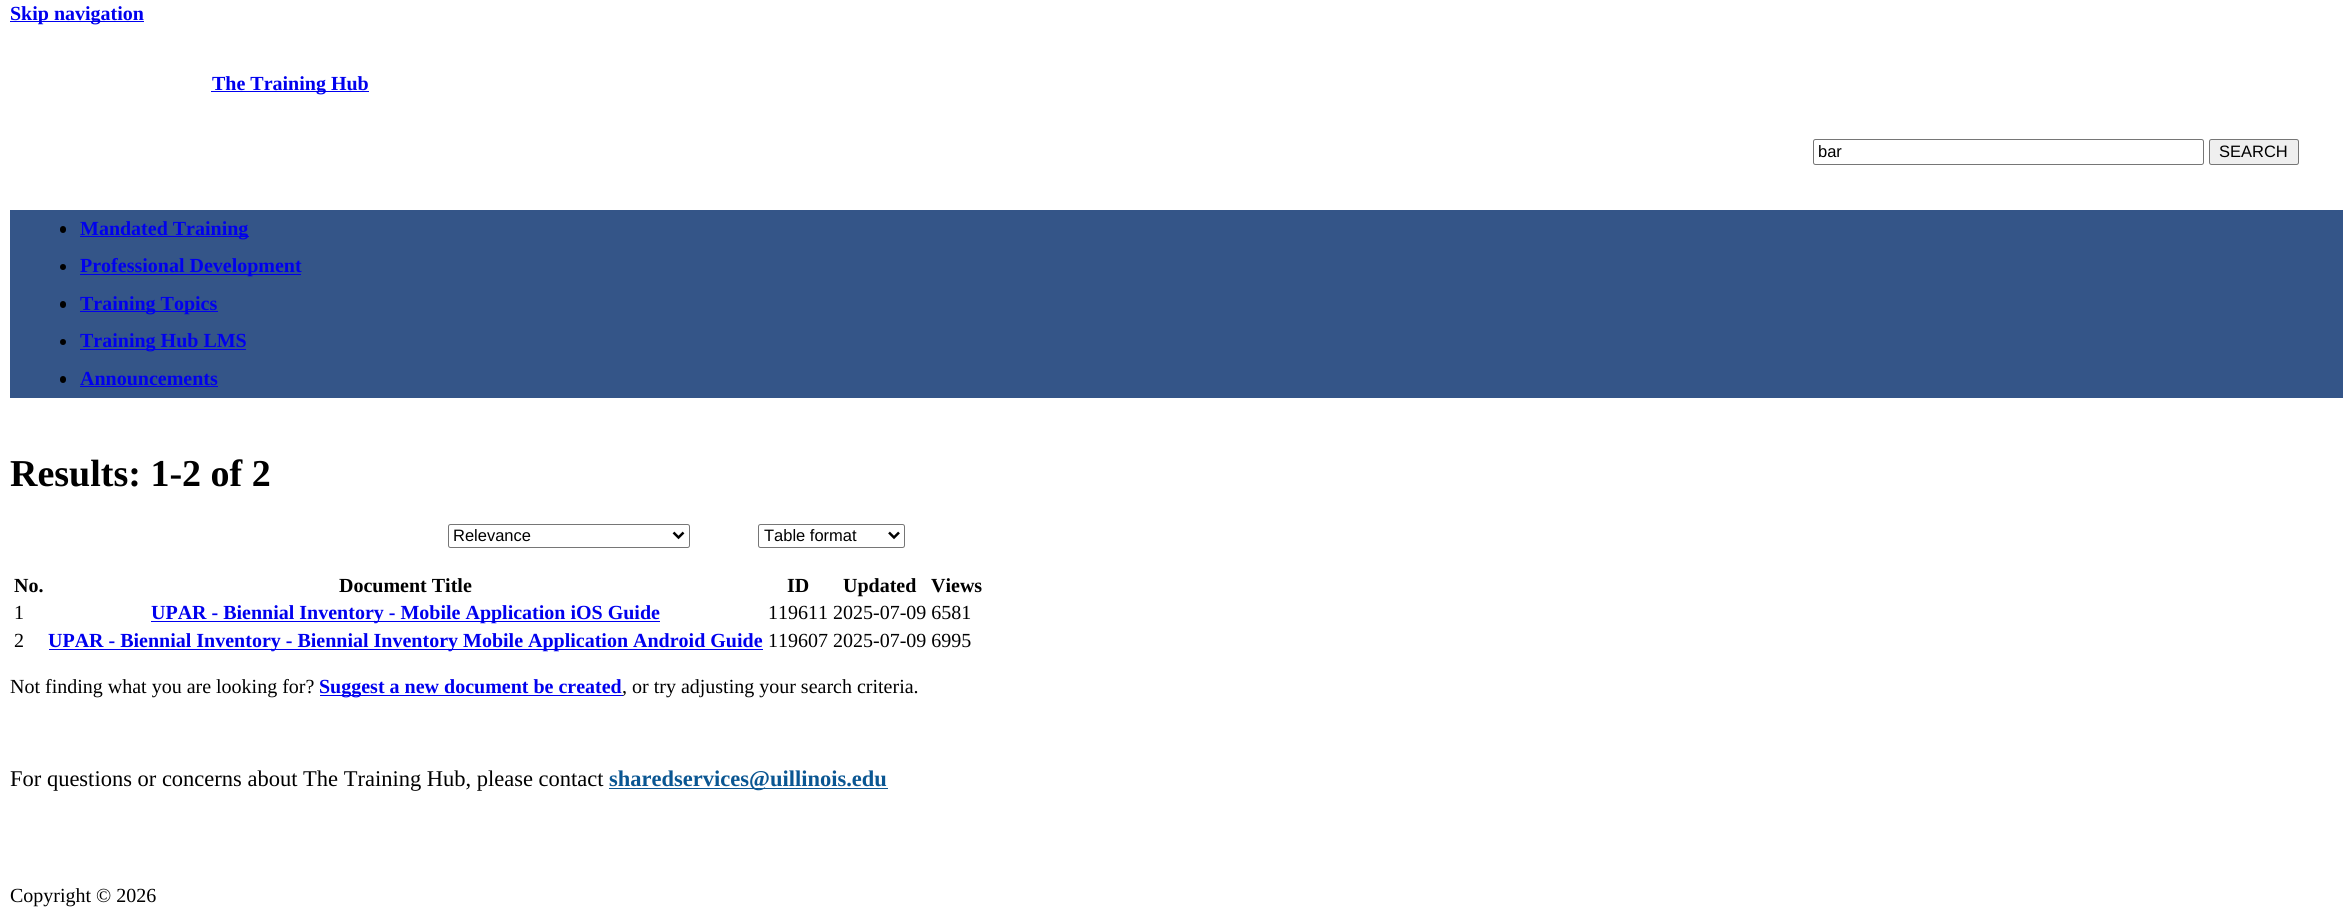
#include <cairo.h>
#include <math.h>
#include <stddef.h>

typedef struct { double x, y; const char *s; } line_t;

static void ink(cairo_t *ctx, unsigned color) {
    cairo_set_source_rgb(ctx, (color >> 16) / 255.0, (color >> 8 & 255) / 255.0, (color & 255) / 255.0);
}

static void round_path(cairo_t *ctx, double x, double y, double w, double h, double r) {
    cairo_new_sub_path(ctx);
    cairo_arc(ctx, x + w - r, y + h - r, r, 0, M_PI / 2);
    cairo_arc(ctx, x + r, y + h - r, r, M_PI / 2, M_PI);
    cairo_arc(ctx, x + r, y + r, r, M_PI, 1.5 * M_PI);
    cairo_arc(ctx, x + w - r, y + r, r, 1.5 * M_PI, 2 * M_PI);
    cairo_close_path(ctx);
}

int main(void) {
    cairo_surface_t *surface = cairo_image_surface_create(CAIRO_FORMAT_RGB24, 2352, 919);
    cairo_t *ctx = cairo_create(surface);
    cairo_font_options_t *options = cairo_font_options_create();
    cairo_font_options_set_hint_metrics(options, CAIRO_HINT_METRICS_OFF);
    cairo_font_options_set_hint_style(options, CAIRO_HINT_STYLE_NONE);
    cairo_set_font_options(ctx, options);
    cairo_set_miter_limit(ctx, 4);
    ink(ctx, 0xFFFFFF);
    cairo_paint(ctx);
    ink(ctx, 0x0000EE);
    cairo_rectangle(ctx, 10, 21, 134, 1);
    cairo_fill(ctx);
    cairo_select_font_face(ctx, "Liberation Serif", CAIRO_FONT_SLANT_NORMAL, CAIRO_FONT_WEIGHT_BOLD);
    cairo_set_font_size(ctx, 20);
    cairo_move_to(ctx, 10, 20);
    cairo_show_text(ctx, "Skip navigation");
    cairo_rectangle(ctx, 211, 91, 158, 1);
    cairo_fill(ctx);
    cairo_move_to(ctx, 212, 90);
    cairo_show_text(ctx, "The Training Hub");
    round_path(ctx, 1813.5, 139.5, 390, 25, 2);
    ink(ctx, 0x767676);
    cairo_set_line_width(ctx, 1);
    cairo_stroke(ctx);
    cairo_select_font_face(ctx, "Liberation Sans", CAIRO_FONT_SLANT_NORMAL, CAIRO_FONT_WEIGHT_NORMAL);
    cairo_set_font_size(ctx, 16.5);
    ink(ctx, 0x000000);
    cairo_move_to(ctx, 1818, 157);
    cairo_show_text(ctx, "bar");
    ink(ctx, 0xEFEFEF);
    round_path(ctx, 2209.5, 139.5, 89, 25, 2);
    cairo_fill_preserve(ctx);
    ink(ctx, 0x767676);
    cairo_stroke(ctx);
    ink(ctx, 0x000000);
    cairo_move_to(ctx, 2219, 157);
    cairo_show_text(ctx, "SEARCH");
    ink(ctx, 0x345588);
    cairo_rectangle(ctx, 10, 210, 2333, 188);
    cairo_fill(ctx);
    ink(ctx, 0x000000);
    round_path(ctx, 60, 226, 6, 7, 3);
    cairo_fill(ctx);
    ink(ctx, 0x0000EE);
    cairo_rectangle(ctx, 80, 236, 169, 1);
    cairo_fill(ctx);
    cairo_select_font_face(ctx, "Liberation Serif", CAIRO_FONT_SLANT_NORMAL, CAIRO_FONT_WEIGHT_BOLD);
    cairo_set_font_size(ctx, 20);
    cairo_move_to(ctx, 80, 235);
    cairo_show_text(ctx, "Mandated Training");
    ink(ctx, 0x000000);
    cairo_new_path(ctx);
    cairo_arc(ctx, 63, 267, 3, 0, 2 * M_PI);
    cairo_fill(ctx);
    ink(ctx, 0x0000EE);
    cairo_rectangle(ctx, 80, 274, 221, 1);
    cairo_fill(ctx);
    cairo_move_to(ctx, 80, 272);
    cairo_show_text(ctx, "Professional Development");
    ink(ctx, 0x000000);
    round_path(ctx, 60, 301, 6, 7, 3);
    cairo_fill(ctx);
    ink(ctx, 0x0000EE);
    cairo_rectangle(ctx, 80, 311, 138, 1);
    cairo_fill(ctx);
    cairo_move_to(ctx, 80, 310);
    cairo_show_text(ctx, "Training Topics");
    ink(ctx, 0x000000);
    cairo_new_path(ctx);
    cairo_arc(ctx, 63, 342, 3, 0, 2 * M_PI);
    cairo_fill(ctx);
    ink(ctx, 0x0000EE);
    cairo_rectangle(ctx, 80, 349, 166, 1);
    cairo_fill(ctx);
    cairo_move_to(ctx, 80, 347);
    cairo_show_text(ctx, "Training Hub LMS");
    ink(ctx, 0x000000);
    round_path(ctx, 60, 376, 6, 7, 3);
    cairo_fill(ctx);
    ink(ctx, 0x0000EE);
    cairo_move_to(ctx, 80, 385);
    cairo_show_text(ctx, "Announcements");
    cairo_rectangle(ctx, 80, 386, 138, 1);
    cairo_fill(ctx);
    cairo_set_font_size(ctx, 38);
    ink(ctx, 0x000000);
    cairo_move_to(ctx, 10, 486);
    cairo_show_text(ctx, "Results: 1-2 of 2");
    round_path(ctx, 448.5, 524.5, 241, 23, 2);
    ink(ctx, 0x767676);
    cairo_stroke(ctx);
    cairo_new_path(ctx);
    cairo_move_to(ctx, 673.5, 532.5);
    cairo_line_to(ctx, 678.5, 537.5);
    cairo_line_to(ctx, 683.5, 532.5);
    ink(ctx, 0x000000);
    cairo_set_line_width(ctx, 2.5);
    cairo_stroke(ctx);
    cairo_select_font_face(ctx, "Liberation Sans", CAIRO_FONT_SLANT_NORMAL, CAIRO_FONT_WEIGHT_NORMAL);
    cairo_set_font_size(ctx, 16.5);
    cairo_move_to(ctx, 453, 541);
    cairo_show_text(ctx, "Relevance");
    round_path(ctx, 758.5, 524.5, 146, 23, 2);
    ink(ctx, 0x767676);
    cairo_set_line_width(ctx, 1);
    cairo_stroke(ctx);
    cairo_new_path(ctx);
    cairo_move_to(ctx, 889, 532.5);
    cairo_line_to(ctx, 894, 537.5);
    cairo_line_to(ctx, 899, 532.5);
    ink(ctx, 0x000000);
    cairo_set_line_width(ctx, 2.5);
    cairo_stroke(ctx);
    cairo_move_to(ctx, 764, 541);
    cairo_show_text(ctx, "Table format");
    cairo_select_font_face(ctx, "Liberation Serif", CAIRO_FONT_SLANT_NORMAL, CAIRO_FONT_WEIGHT_BOLD);
    cairo_set_font_size(ctx, 20);
    {
        static const line_t items[] = {
            {14, 592, "No."},
            {339, 592, "Document Title"},
            {787, 592, "ID"},
            {843, 592, "Updated"},
            {931, 592, "Views"},
        };
        for (size_t i = 0; i < sizeof items / sizeof *items; i++) {
            cairo_move_to(ctx, items[i].x, items[i].y);
            cairo_show_text(ctx, items[i].s);
        }
    }
    cairo_select_font_face(ctx, "Liberation Serif", CAIRO_FONT_SLANT_NORMAL, CAIRO_FONT_WEIGHT_NORMAL);
    cairo_move_to(ctx, 14, 619);
    cairo_show_text(ctx, "1");
    ink(ctx, 0x0000EE);
    cairo_rectangle(ctx, 151, 621, 509, 1);
    cairo_fill(ctx);
    cairo_select_font_face(ctx, "Liberation Serif", CAIRO_FONT_SLANT_NORMAL, CAIRO_FONT_WEIGHT_BOLD);
    cairo_move_to(ctx, 151, 619);
    cairo_show_text(ctx, "UPAR - Biennial Inventory - Mobile Application iOS Guide");
    cairo_select_font_face(ctx, "Liberation Serif", CAIRO_FONT_SLANT_NORMAL, CAIRO_FONT_WEIGHT_NORMAL);
    ink(ctx, 0x000000);
    cairo_move_to(ctx, 768, 619);
    cairo_show_text(ctx, "119611 2025-07-09 6581");
    cairo_move_to(ctx, 14, 647);
    cairo_show_text(ctx, "2");
    ink(ctx, 0x0000EE);
    cairo_rectangle(ctx, 49, 649, 714, 1);
    cairo_fill(ctx);
    cairo_select_font_face(ctx, "Liberation Serif", CAIRO_FONT_SLANT_NORMAL, CAIRO_FONT_WEIGHT_BOLD);
    cairo_move_to(ctx, 48, 647);
    cairo_show_text(ctx, "UPAR - Biennial Inventory - Biennial Inventory Mobile Application Android Guide");
    cairo_select_font_face(ctx, "Liberation Serif", CAIRO_FONT_SLANT_NORMAL, CAIRO_FONT_WEIGHT_NORMAL);
    ink(ctx, 0x000000);
    cairo_move_to(ctx, 768, 647);
    cairo_show_text(ctx, "119607 2025-07-09 6995");
    cairo_move_to(ctx, 10, 693);
    cairo_show_text(ctx, "Not finding what you are looking for?");
    ink(ctx, 0x0000EE);
    cairo_rectangle(ctx, 320, 695, 303, 1);
    cairo_fill(ctx);
    cairo_select_font_face(ctx, "Liberation Serif", CAIRO_FONT_SLANT_NORMAL, CAIRO_FONT_WEIGHT_BOLD);
    cairo_move_to(ctx, 319, 693);
    cairo_show_text(ctx, "Suggest a new document be created");
    cairo_select_font_face(ctx, "Liberation Serif", CAIRO_FONT_SLANT_NORMAL, CAIRO_FONT_WEIGHT_NORMAL);
    ink(ctx, 0x000000);
    cairo_move_to(ctx, 622, 693);
    cairo_show_text(ctx, ", or try adjusting your search criteria.");
    cairo_set_font_size(ctx, 22.5);
    cairo_move_to(ctx, 10, 786);
    cairo_show_text(ctx, "For questions or concerns about The Training Hub, please contact");
    ink(ctx, 0x0A5692);
    cairo_rectangle(ctx, 609, 788, 279, 1);
    cairo_fill(ctx);
    cairo_select_font_face(ctx, "Liberation Serif", CAIRO_FONT_SLANT_NORMAL, CAIRO_FONT_WEIGHT_BOLD);
    cairo_move_to(ctx, 609, 786);
    cairo_show_text(ctx, "sharedservices@uillinois.edu");
    cairo_select_font_face(ctx, "Liberation Serif", CAIRO_FONT_SLANT_NORMAL, CAIRO_FONT_WEIGHT_NORMAL);
    cairo_set_font_size(ctx, 20);
    ink(ctx, 0x000000);
    cairo_move_to(ctx, 10, 902);
    cairo_show_text(ctx, "Copyright © 2026");
    cairo_surface_write_to_png(surface, "image.png");
    cairo_font_options_destroy(options);
    cairo_destroy(ctx);
    cairo_surface_destroy(surface);
    return 0;
}
